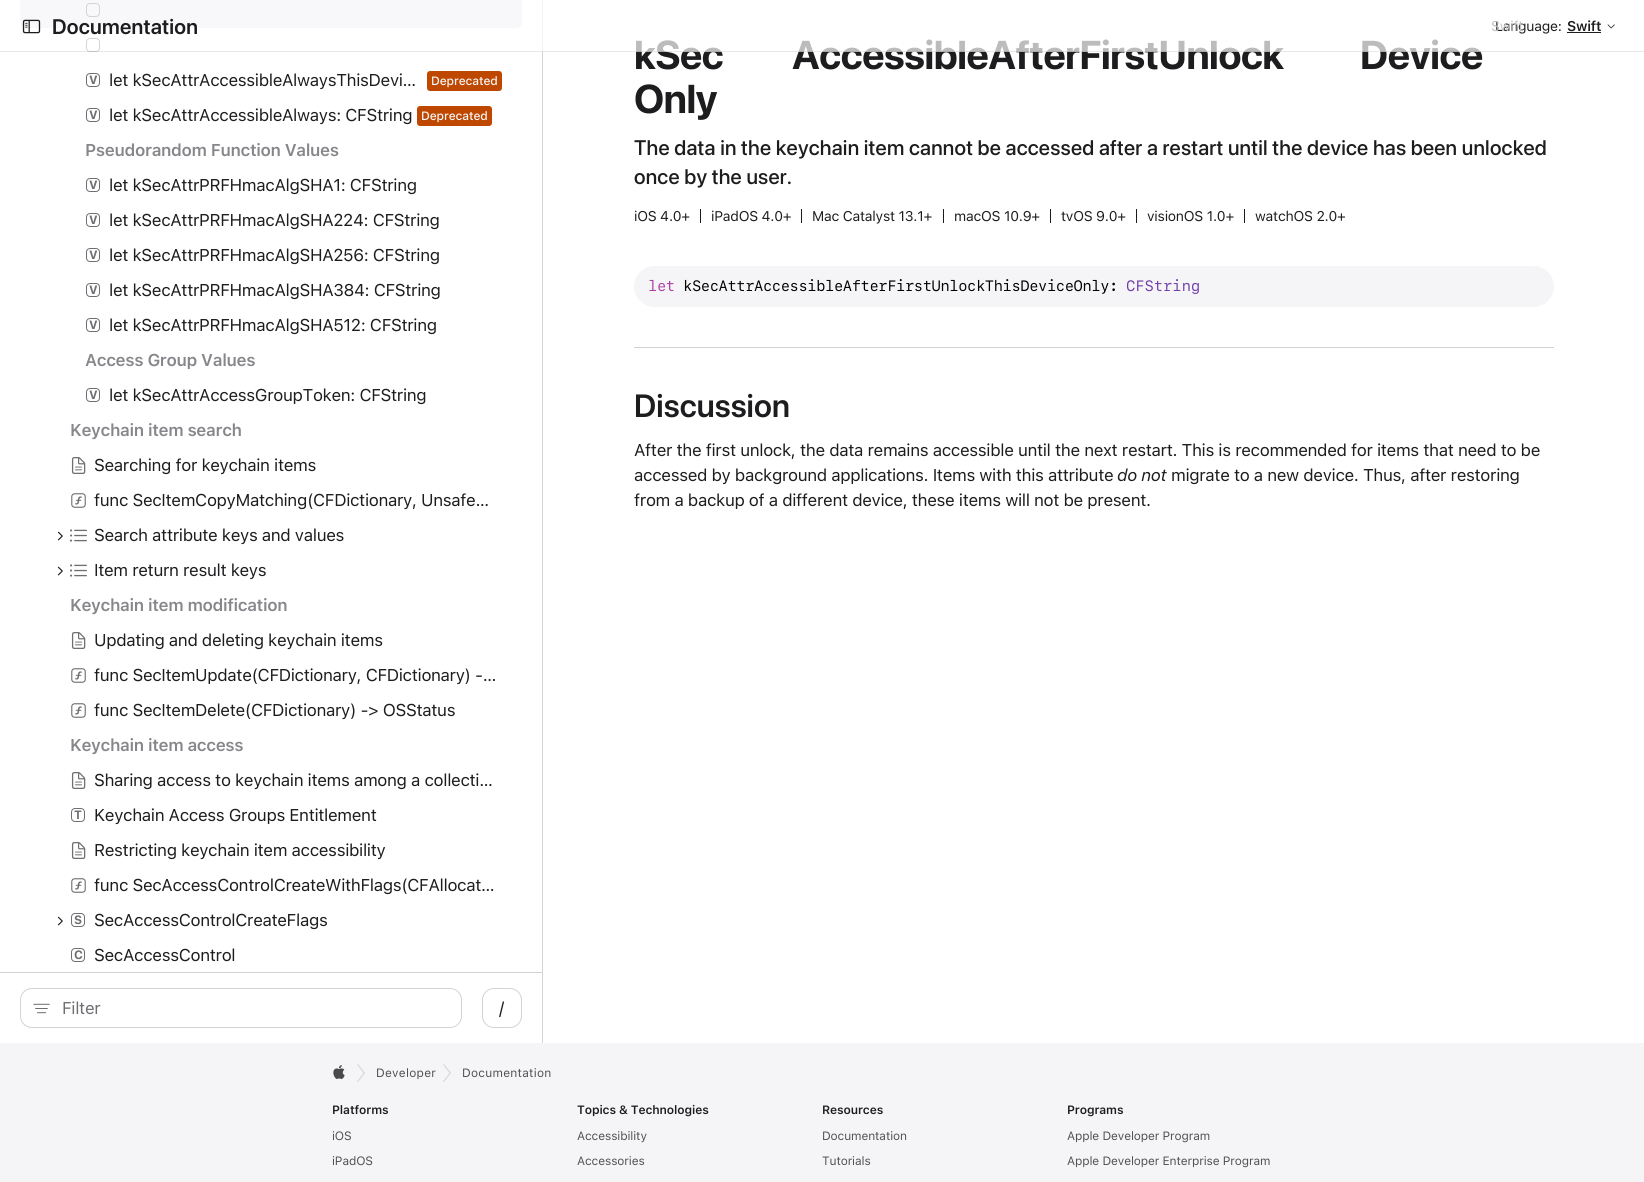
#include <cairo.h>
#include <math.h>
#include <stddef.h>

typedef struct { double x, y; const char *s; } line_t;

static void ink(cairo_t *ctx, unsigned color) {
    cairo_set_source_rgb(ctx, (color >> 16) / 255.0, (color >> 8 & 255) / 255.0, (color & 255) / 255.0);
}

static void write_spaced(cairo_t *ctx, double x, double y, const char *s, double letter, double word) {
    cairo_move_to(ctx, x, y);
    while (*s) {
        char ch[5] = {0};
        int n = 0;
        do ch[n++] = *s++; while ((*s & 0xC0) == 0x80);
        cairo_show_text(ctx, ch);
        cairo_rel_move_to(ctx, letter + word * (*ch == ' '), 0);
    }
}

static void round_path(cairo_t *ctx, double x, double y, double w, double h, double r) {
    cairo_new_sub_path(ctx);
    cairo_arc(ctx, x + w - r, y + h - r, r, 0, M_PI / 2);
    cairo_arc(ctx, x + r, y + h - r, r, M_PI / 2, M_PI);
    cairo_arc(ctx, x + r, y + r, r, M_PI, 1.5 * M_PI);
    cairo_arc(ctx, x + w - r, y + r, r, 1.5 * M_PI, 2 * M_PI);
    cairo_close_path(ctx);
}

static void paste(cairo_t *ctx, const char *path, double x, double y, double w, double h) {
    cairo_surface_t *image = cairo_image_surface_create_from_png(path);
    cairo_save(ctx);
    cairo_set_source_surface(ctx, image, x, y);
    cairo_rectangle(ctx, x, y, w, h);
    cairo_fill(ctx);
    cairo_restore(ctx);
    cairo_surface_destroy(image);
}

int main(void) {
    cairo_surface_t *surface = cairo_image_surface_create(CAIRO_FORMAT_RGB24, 1644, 1182);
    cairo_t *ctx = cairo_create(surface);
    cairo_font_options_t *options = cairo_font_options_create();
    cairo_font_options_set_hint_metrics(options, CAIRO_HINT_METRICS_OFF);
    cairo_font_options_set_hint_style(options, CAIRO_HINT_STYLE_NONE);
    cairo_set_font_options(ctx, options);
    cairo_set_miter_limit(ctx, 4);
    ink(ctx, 0xFFFFFF);
    cairo_paint(ctx);
    ink(ctx, 0xD2D2D7);
    cairo_rectangle(ctx, 542, 0, 1, 1043);
    cairo_fill(ctx);
    ink(ctx, 0xE8E8ED);
    round_path(ctx, 20, -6, 502, 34, 6);
    cairo_fill(ctx);
    round_path(ctx, 86.5, 3.5, 13, 13, 3.5);
    ink(ctx, 0x6E6E73);
    cairo_set_line_width(ctx, 1);
    cairo_stroke(ctx);
    round_path(ctx, 86.5, 38.5, 13, 13, 3.5);
    cairo_stroke(ctx);
    cairo_select_font_face(ctx, "SF Pro Display", CAIRO_FONT_SLANT_NORMAL, CAIRO_FONT_WEIGHT_BOLD);
    cairo_set_font_size(ctx, 40);
    ink(ctx, 0x1D1D1F);
    {
        static const line_t items[] = {
            {634, 69, "kSec"},
            {792, 69, "AccessibleAfterFirstUnlock"},
            {1360, 69, "Device"},
        };
        for (size_t i = 0; i < sizeof items / sizeof *items; i++) {
            write_spaced(ctx, items[i].x, items[i].y, items[i].s, -0.37, 0);
        }
    }
    cairo_set_source_rgba(ctx, 1, 1, 1, 0.7);
    cairo_rectangle(ctx, 20, 0, 1460, 52);
    cairo_fill(ctx);
    cairo_set_source_rgba(ctx, 0.114, 0.114, 0.122, 0.1);
    cairo_rectangle(ctx, 0, 51, 1644, 1);
    cairo_fill(ctx);
    paste(ctx, "media/1.png", 22, 19, 19, 15);
    cairo_select_font_face(ctx, "SF Pro Display SemiBold", CAIRO_FONT_SLANT_NORMAL, CAIRO_FONT_WEIGHT_NORMAL);
    cairo_set_font_size(ctx, 21);
    ink(ctx, 0x1D1D1F);
    write_spaced(ctx, 52, 34, "Documentation", 0.23, 0);
    cairo_select_font_face(ctx, "SF Pro Text", CAIRO_FONT_SLANT_NORMAL, CAIRO_FONT_WEIGHT_NORMAL);
    cairo_set_font_size(ctx, 14);
    write_spaced(ctx, 1495, 31, "Language:", -0.25, 0);
    ink(ctx, 0xC0C0C1);
    write_spaced(ctx, 1491, 31, "Swift", -0.25, 0);
    cairo_select_font_face(ctx, "SF Pro Text SemiBold", CAIRO_FONT_SLANT_NORMAL, CAIRO_FONT_WEIGHT_NORMAL);
    ink(ctx, 0x1D1D1F);
    write_spaced(ctx, 1567, 31, "Swift", -0.25, 0);
    cairo_rectangle(ctx, 1567, 32, 34, 1);
    cairo_fill(ctx);
    paste(ctx, "media/2.png", 1607, 24, 8, 5);
    round_path(ctx, 86.5, 73.5, 13, 13, 3.5);
    ink(ctx, 0x6E6E73);
    cairo_stroke(ctx);
    cairo_select_font_face(ctx, "SF Pro Text", CAIRO_FONT_SLANT_NORMAL, CAIRO_FONT_WEIGHT_BOLD);
    cairo_set_font_size(ctx, 12);
    cairo_move_to(ctx, 89, 84);
    cairo_show_text(ctx, "V");
    cairo_select_font_face(ctx, "SF Pro Text", CAIRO_FONT_SLANT_NORMAL, CAIRO_FONT_WEIGHT_NORMAL);
    cairo_set_font_size(ctx, 17);
    ink(ctx, 0x1D1D1F);
    write_spaced(ctx, 109, 86, "let kSecAttrAccessibleAlwaysThisDevi…", -0.37, 0);
    ink(ctx, 0xBF4800);
    round_path(ctx, 427, 71, 75, 20, 3);
    cairo_fill(ctx);
    cairo_select_font_face(ctx, "SF Pro Text Medium", CAIRO_FONT_SLANT_NORMAL, CAIRO_FONT_WEIGHT_NORMAL);
    cairo_set_font_size(ctx, 12);
    ink(ctx, 0xF5F5F7);
    write_spaced(ctx, 431, 85, "Deprecated", -0.1, 0);
    round_path(ctx, 86.5, 108.5, 13, 13, 3.5);
    ink(ctx, 0x6E6E73);
    cairo_stroke(ctx);
    cairo_select_font_face(ctx, "SF Pro Text", CAIRO_FONT_SLANT_NORMAL, CAIRO_FONT_WEIGHT_BOLD);
    cairo_move_to(ctx, 89, 119);
    cairo_show_text(ctx, "V");
    cairo_select_font_face(ctx, "SF Pro Text", CAIRO_FONT_SLANT_NORMAL, CAIRO_FONT_WEIGHT_NORMAL);
    cairo_set_font_size(ctx, 17);
    ink(ctx, 0x1D1D1F);
    write_spaced(ctx, 109, 121, "let kSecAttrAccessibleAlways: CFString", -0.37, 0);
    ink(ctx, 0xBF4800);
    round_path(ctx, 417, 106, 75, 20, 3);
    cairo_fill(ctx);
    cairo_select_font_face(ctx, "SF Pro Text Medium", CAIRO_FONT_SLANT_NORMAL, CAIRO_FONT_WEIGHT_NORMAL);
    cairo_set_font_size(ctx, 12);
    ink(ctx, 0xF5F5F7);
    write_spaced(ctx, 421, 120, "Deprecated", -0.1, 0);
    cairo_select_font_face(ctx, "SF Pro Text SemiBold", CAIRO_FONT_SLANT_NORMAL, CAIRO_FONT_WEIGHT_NORMAL);
    cairo_set_font_size(ctx, 17);
    ink(ctx, 0x86868B);
    write_spaced(ctx, 85, 156, "Pseudorandom Function Values", -0.37, 0);
    round_path(ctx, 86.5, 178.5, 13, 13, 3.5);
    ink(ctx, 0x6E6E73);
    cairo_stroke(ctx);
    cairo_select_font_face(ctx, "SF Pro Text", CAIRO_FONT_SLANT_NORMAL, CAIRO_FONT_WEIGHT_BOLD);
    cairo_set_font_size(ctx, 12);
    cairo_move_to(ctx, 89, 189);
    cairo_show_text(ctx, "V");
    cairo_select_font_face(ctx, "SF Pro Text", CAIRO_FONT_SLANT_NORMAL, CAIRO_FONT_WEIGHT_NORMAL);
    cairo_set_font_size(ctx, 17);
    ink(ctx, 0x1D1D1F);
    write_spaced(ctx, 109, 191, "let kSecAttrPRFHmacAlgSHA1: CFString", -0.37, 0);
    round_path(ctx, 86.5, 213.5, 13, 13, 3.5);
    ink(ctx, 0x6E6E73);
    cairo_stroke(ctx);
    cairo_select_font_face(ctx, "SF Pro Text", CAIRO_FONT_SLANT_NORMAL, CAIRO_FONT_WEIGHT_BOLD);
    cairo_set_font_size(ctx, 12);
    cairo_move_to(ctx, 89, 224);
    cairo_show_text(ctx, "V");
    cairo_select_font_face(ctx, "SF Pro Text", CAIRO_FONT_SLANT_NORMAL, CAIRO_FONT_WEIGHT_NORMAL);
    cairo_set_font_size(ctx, 17);
    ink(ctx, 0x1D1D1F);
    write_spaced(ctx, 109, 226, "let kSecAttrPRFHmacAlgSHA224: CFString", -0.37, 0);
    round_path(ctx, 86.5, 248.5, 13, 13, 3.5);
    ink(ctx, 0x6E6E73);
    cairo_stroke(ctx);
    cairo_select_font_face(ctx, "SF Pro Text", CAIRO_FONT_SLANT_NORMAL, CAIRO_FONT_WEIGHT_BOLD);
    cairo_set_font_size(ctx, 12);
    cairo_move_to(ctx, 89, 259);
    cairo_show_text(ctx, "V");
    cairo_select_font_face(ctx, "SF Pro Text", CAIRO_FONT_SLANT_NORMAL, CAIRO_FONT_WEIGHT_NORMAL);
    cairo_set_font_size(ctx, 17);
    ink(ctx, 0x1D1D1F);
    write_spaced(ctx, 109, 261, "let kSecAttrPRFHmacAlgSHA256: CFString", -0.37, 0);
    round_path(ctx, 86.5, 283.5, 13, 13, 3.5);
    ink(ctx, 0x6E6E73);
    cairo_stroke(ctx);
    cairo_select_font_face(ctx, "SF Pro Text", CAIRO_FONT_SLANT_NORMAL, CAIRO_FONT_WEIGHT_BOLD);
    cairo_set_font_size(ctx, 12);
    cairo_move_to(ctx, 89, 294);
    cairo_show_text(ctx, "V");
    cairo_select_font_face(ctx, "SF Pro Text", CAIRO_FONT_SLANT_NORMAL, CAIRO_FONT_WEIGHT_NORMAL);
    cairo_set_font_size(ctx, 17);
    ink(ctx, 0x1D1D1F);
    write_spaced(ctx, 109, 296, "let kSecAttrPRFHmacAlgSHA384: CFString", -0.37, 0);
    round_path(ctx, 86.5, 318.5, 13, 13, 3.5);
    ink(ctx, 0x6E6E73);
    cairo_stroke(ctx);
    cairo_select_font_face(ctx, "SF Pro Text", CAIRO_FONT_SLANT_NORMAL, CAIRO_FONT_WEIGHT_BOLD);
    cairo_set_font_size(ctx, 12);
    cairo_move_to(ctx, 89, 329);
    cairo_show_text(ctx, "V");
    cairo_select_font_face(ctx, "SF Pro Text", CAIRO_FONT_SLANT_NORMAL, CAIRO_FONT_WEIGHT_NORMAL);
    cairo_set_font_size(ctx, 17);
    ink(ctx, 0x1D1D1F);
    write_spaced(ctx, 109, 331, "let kSecAttrPRFHmacAlgSHA512: CFString", -0.37, 0);
    cairo_select_font_face(ctx, "SF Pro Text SemiBold", CAIRO_FONT_SLANT_NORMAL, CAIRO_FONT_WEIGHT_NORMAL);
    ink(ctx, 0x86868B);
    write_spaced(ctx, 85, 366, "Access Group Values", -0.37, 0);
    round_path(ctx, 86.5, 388.5, 13, 13, 3.5);
    ink(ctx, 0x6E6E73);
    cairo_stroke(ctx);
    cairo_select_font_face(ctx, "SF Pro Text", CAIRO_FONT_SLANT_NORMAL, CAIRO_FONT_WEIGHT_BOLD);
    cairo_set_font_size(ctx, 12);
    cairo_move_to(ctx, 89, 399);
    cairo_show_text(ctx, "V");
    cairo_select_font_face(ctx, "SF Pro Text", CAIRO_FONT_SLANT_NORMAL, CAIRO_FONT_WEIGHT_NORMAL);
    cairo_set_font_size(ctx, 17);
    ink(ctx, 0x1D1D1F);
    write_spaced(ctx, 109, 401, "let kSecAttrAccessGroupToken: CFString", -0.37, 0);
    cairo_select_font_face(ctx, "SF Pro Text SemiBold", CAIRO_FONT_SLANT_NORMAL, CAIRO_FONT_WEIGHT_NORMAL);
    ink(ctx, 0x86868B);
    write_spaced(ctx, 70, 436, "Keychain item search", -0.37, 0);
    paste(ctx, "media/3.png", 71, 457, 15, 17);
    cairo_select_font_face(ctx, "SF Pro Text", CAIRO_FONT_SLANT_NORMAL, CAIRO_FONT_WEIGHT_NORMAL);
    ink(ctx, 0x1D1D1F);
    write_spaced(ctx, 94, 471, "Searching for keychain items", -0.37, 0);
    paste(ctx, "media/4.png", 71, 493, 15, 15);
    write_spaced(ctx, 94, 506, "func SecItemCopyMatching(CFDictionary, Unsafe…", -0.37, 0);
    paste(ctx, "media/5.png", 57, 531, 6, 10);
    paste(ctx, "media/6.png", 70, 529, 17, 13);
    write_spaced(ctx, 94, 541, "Search attribute keys and values", -0.37, 0);
    paste(ctx, "media/5.png", 57, 566, 6, 10);
    paste(ctx, "media/6.png", 70, 564, 17, 13);
    write_spaced(ctx, 94, 576, "Item return result keys", -0.37, 0);
    cairo_select_font_face(ctx, "SF Pro Text SemiBold", CAIRO_FONT_SLANT_NORMAL, CAIRO_FONT_WEIGHT_NORMAL);
    ink(ctx, 0x86868B);
    write_spaced(ctx, 70, 611, "Keychain item modification", -0.37, 0);
    paste(ctx, "media/3.png", 71, 632, 15, 17);
    cairo_select_font_face(ctx, "SF Pro Text", CAIRO_FONT_SLANT_NORMAL, CAIRO_FONT_WEIGHT_NORMAL);
    ink(ctx, 0x1D1D1F);
    write_spaced(ctx, 94, 646, "Updating and deleting keychain items", -0.37, 0);
    paste(ctx, "media/4.png", 71, 668, 15, 15);
    write_spaced(ctx, 94, 681, "func SecItemUpdate(CFDictionary, CFDictionary) -…", -0.37, 0);
    paste(ctx, "media/4.png", 71, 703, 15, 15);
    write_spaced(ctx, 94, 716, "func SecItemDelete(CFDictionary) -> OSStatus", -0.37, 0);
    cairo_select_font_face(ctx, "SF Pro Text SemiBold", CAIRO_FONT_SLANT_NORMAL, CAIRO_FONT_WEIGHT_NORMAL);
    ink(ctx, 0x86868B);
    write_spaced(ctx, 70, 751, "Keychain item access", -0.37, 0);
    paste(ctx, "media/3.png", 71, 772, 15, 17);
    cairo_select_font_face(ctx, "SF Pro Text", CAIRO_FONT_SLANT_NORMAL, CAIRO_FONT_WEIGHT_NORMAL);
    ink(ctx, 0x1D1D1F);
    write_spaced(ctx, 94, 786, "Sharing access to keychain items among a collecti…", -0.37, 0);
    round_path(ctx, 71.5, 808.5, 13, 13, 3.5);
    ink(ctx, 0x6E6E73);
    cairo_stroke(ctx);
    cairo_select_font_face(ctx, "SF Pro Text", CAIRO_FONT_SLANT_NORMAL, CAIRO_FONT_WEIGHT_BOLD);
    cairo_set_font_size(ctx, 12);
    cairo_move_to(ctx, 74, 819);
    cairo_show_text(ctx, "T");
    cairo_select_font_face(ctx, "SF Pro Text", CAIRO_FONT_SLANT_NORMAL, CAIRO_FONT_WEIGHT_NORMAL);
    cairo_set_font_size(ctx, 17);
    ink(ctx, 0x1D1D1F);
    write_spaced(ctx, 94, 821, "Keychain Access Groups Entitlement", -0.37, 0);
    paste(ctx, "media/3.png", 71, 842, 15, 17);
    write_spaced(ctx, 94, 856, "Restricting keychain item accessibility", -0.37, 0);
    paste(ctx, "media/4.png", 71, 878, 15, 15);
    write_spaced(ctx, 94, 891, "func SecAccessControlCreateWithFlags(CFAllocat…", -0.37, 0);
    paste(ctx, "media/5.png", 57, 916, 6, 10);
    round_path(ctx, 71.5, 913.5, 13, 13, 3.5);
    ink(ctx, 0x6E6E73);
    cairo_stroke(ctx);
    cairo_select_font_face(ctx, "SF Pro Text", CAIRO_FONT_SLANT_NORMAL, CAIRO_FONT_WEIGHT_BOLD);
    cairo_set_font_size(ctx, 12);
    cairo_move_to(ctx, 74, 924);
    cairo_show_text(ctx, "S");
    cairo_select_font_face(ctx, "SF Pro Text", CAIRO_FONT_SLANT_NORMAL, CAIRO_FONT_WEIGHT_NORMAL);
    cairo_set_font_size(ctx, 17);
    ink(ctx, 0x1D1D1F);
    write_spaced(ctx, 94, 926, "SecAccessControlCreateFlags", -0.37, 0);
    round_path(ctx, 71.5, 948.5, 13, 13, 3.5);
    ink(ctx, 0x6E6E73);
    cairo_stroke(ctx);
    cairo_select_font_face(ctx, "SF Pro Text", CAIRO_FONT_SLANT_NORMAL, CAIRO_FONT_WEIGHT_BOLD);
    cairo_set_font_size(ctx, 12);
    cairo_move_to(ctx, 74, 959);
    cairo_show_text(ctx, "C");
    cairo_select_font_face(ctx, "SF Pro Text", CAIRO_FONT_SLANT_NORMAL, CAIRO_FONT_WEIGHT_NORMAL);
    cairo_set_font_size(ctx, 17);
    ink(ctx, 0x1D1D1F);
    write_spaced(ctx, 94, 961, "SecAccessControl", -0.37, 0);
    ink(ctx, 0xD2D2D7);
    cairo_rectangle(ctx, 0, 972, 542, 1);
    cairo_fill(ctx);
    round_path(ctx, 20.5, 988.5, 441, 39, 11.5);
    cairo_stroke(ctx);
    paste(ctx, "media/7.png", 33, 1003, 17, 11);
    ink(ctx, 0x6E6E73);
    write_spaced(ctx, 62, 1014, "Filter", -0.37, 0);
    round_path(ctx, 482.5, 988.5, 39, 39, 11.5);
    ink(ctx, 0xD2D2D7);
    cairo_stroke(ctx);
    ink(ctx, 0x1D1D1F);
    cairo_move_to(ctx, 499, 1014);
    cairo_show_text(ctx, "/");
    cairo_select_font_face(ctx, "SF Pro Display", CAIRO_FONT_SLANT_NORMAL, CAIRO_FONT_WEIGHT_BOLD);
    cairo_set_font_size(ctx, 40);
    write_spaced(ctx, 634, 113, "Only", -0.37, 0);
    cairo_select_font_face(ctx, "SF Pro Display Medium", CAIRO_FONT_SLANT_NORMAL, CAIRO_FONT_WEIGHT_NORMAL);
    cairo_set_font_size(ctx, 21);
    write_spaced(ctx, 634, 155, "The data in the keychain item cannot be accessed after a restart until the device has been unlocked", 0.23, 0);
    write_spaced(ctx, 634, 184, "once by the user.", 0.23, 0);
    cairo_select_font_face(ctx, "SF Pro Text", CAIRO_FONT_SLANT_NORMAL, CAIRO_FONT_WEIGHT_NORMAL);
    cairo_set_font_size(ctx, 14);
    write_spaced(ctx, 634, 221, "iOS 4.0+", -0.25, 0);
    cairo_rectangle(ctx, 700, 209, 1, 14);
    cairo_fill(ctx);
    write_spaced(ctx, 711, 221, "iPadOS 4.0+", -0.25, 0);
    cairo_rectangle(ctx, 801, 209, 1, 14);
    cairo_fill(ctx);
    write_spaced(ctx, 812, 221, "Mac Catalyst 13.1+", -0.25, 0);
    cairo_rectangle(ctx, 943, 209, 1, 14);
    cairo_fill(ctx);
    write_spaced(ctx, 954, 221, "macOS 10.9+", -0.25, 0);
    cairo_rectangle(ctx, 1050, 209, 1, 14);
    cairo_fill(ctx);
    write_spaced(ctx, 1061, 221, "tvOS 9.0+", -0.25, 0);
    cairo_rectangle(ctx, 1136, 209, 1, 14);
    cairo_fill(ctx);
    write_spaced(ctx, 1147, 221, "visionOS 1.0+", -0.25, 0);
    cairo_rectangle(ctx, 1244, 209, 1, 14);
    cairo_fill(ctx);
    write_spaced(ctx, 1255, 221, "watchOS 2.0+", -0.25, 0);
    ink(ctx, 0xF5F5F7);
    round_path(ctx, 634, 266, 920, 41, 20.5);
    cairo_fill(ctx);
    cairo_select_font_face(ctx, "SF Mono", CAIRO_FONT_SLANT_NORMAL, CAIRO_FONT_WEIGHT_NORMAL);
    cairo_set_font_size(ctx, 15);
    ink(ctx, 0xAD3DA4);
    write_spaced(ctx, 648, 291, "let", -0.4, 0);
    ink(ctx, 0x000000);
    write_spaced(ctx, 683, 291, "kSecAttrAccessibleAfterFirstUnlockThisDeviceOnly:", -0.4, 0);
    ink(ctx, 0x703DAA);
    cairo_move_to(ctx, 1126, 291);
    cairo_show_text(ctx, "CFString");
    ink(ctx, 0xD2D2D7);
    cairo_rectangle(ctx, 634, 347, 920, 1);
    cairo_fill(ctx);
    cairo_select_font_face(ctx, "SF Pro Display SemiBold", CAIRO_FONT_SLANT_NORMAL, CAIRO_FONT_WEIGHT_NORMAL);
    cairo_set_font_size(ctx, 32);
    ink(ctx, 0x1D1D1F);
    write_spaced(ctx, 634, 417, "Discussion", 0.1, 0);
    cairo_select_font_face(ctx, "SF Pro Text", CAIRO_FONT_SLANT_NORMAL, CAIRO_FONT_WEIGHT_NORMAL);
    cairo_set_font_size(ctx, 17);
    write_spaced(ctx, 634, 456, "After the first unlock, the data remains accessible until the next restart. This is recommended for items that need to be", -0.37, 0);
    write_spaced(ctx, 634, 481, "accessed by background applications. Items with this attribute", -0.37, 0);
    cairo_select_font_face(ctx, "SF Pro Text", CAIRO_FONT_SLANT_ITALIC, CAIRO_FONT_WEIGHT_NORMAL);
    write_spaced(ctx, 1117, 481, "do not", -0.37, 0);
    cairo_select_font_face(ctx, "SF Pro Text", CAIRO_FONT_SLANT_NORMAL, CAIRO_FONT_WEIGHT_NORMAL);
    write_spaced(ctx, 1171, 481, "migrate to a new device. Thus, after restoring", -0.37, 0);
    write_spaced(ctx, 634, 506, "from a backup of a different device, these items will not be present.", -0.37, 0);
    ink(ctx, 0xF5F5F7);
    cairo_rectangle(ctx, 0, 1043, 1644, 139);
    cairo_fill(ctx);
    paste(ctx, "media/8.png", 333, 1065, 12, 14);
    ink(ctx, 0xD6D6D6);
    cairo_new_path(ctx);
    cairo_move_to(ctx, 358, 1064);
    cairo_line_to(ctx, 365, 1073);
    cairo_line_to(ctx, 358, 1082);
    cairo_line_to(ctx, 357, 1081.5);
    cairo_line_to(ctx, 363.5, 1073);
    cairo_line_to(ctx, 357, 1064.5);
    cairo_close_path(ctx);
    cairo_fill(ctx);
    cairo_set_font_size(ctx, 12);
    ink(ctx, 0x515154);
    write_spaced(ctx, 376, 1077, "Developer", 0.25, 0);
    ink(ctx, 0xD6D6D6);
    cairo_new_path(ctx);
    cairo_move_to(ctx, 444, 1064);
    cairo_line_to(ctx, 451, 1073);
    cairo_line_to(ctx, 444, 1082);
    cairo_line_to(ctx, 443, 1081.5);
    cairo_line_to(ctx, 449.5, 1073);
    cairo_line_to(ctx, 443, 1064.5);
    cairo_close_path(ctx);
    cairo_fill(ctx);
    ink(ctx, 0x515154);
    write_spaced(ctx, 462, 1077, "Documentation", 0.25, 0);
    cairo_select_font_face(ctx, "SF Pro Text SemiBold", CAIRO_FONT_SLANT_NORMAL, CAIRO_FONT_WEIGHT_NORMAL);
    ink(ctx, 0x1D1D1F);
    write_spaced(ctx, 332, 1114, "Platforms", -0.1, 0);
    cairo_select_font_face(ctx, "SF Pro Text", CAIRO_FONT_SLANT_NORMAL, CAIRO_FONT_WEIGHT_NORMAL);
    ink(ctx, 0x515154);
    write_spaced(ctx, 332, 1140, "iOS", -0.1, 0);
    write_spaced(ctx, 332, 1165, "iPadOS", -0.1, 0);
    cairo_select_font_face(ctx, "SF Pro Text SemiBold", CAIRO_FONT_SLANT_NORMAL, CAIRO_FONT_WEIGHT_NORMAL);
    ink(ctx, 0x1D1D1F);
    write_spaced(ctx, 577, 1114, "Topics & Technologies", -0.1, 0);
    cairo_select_font_face(ctx, "SF Pro Text", CAIRO_FONT_SLANT_NORMAL, CAIRO_FONT_WEIGHT_NORMAL);
    ink(ctx, 0x515154);
    write_spaced(ctx, 577, 1140, "Accessibility", -0.1, 0);
    write_spaced(ctx, 577, 1165, "Accessories", -0.1, 0);
    cairo_select_font_face(ctx, "SF Pro Text SemiBold", CAIRO_FONT_SLANT_NORMAL, CAIRO_FONT_WEIGHT_NORMAL);
    ink(ctx, 0x1D1D1F);
    write_spaced(ctx, 822, 1114, "Resources", -0.1, 0);
    cairo_select_font_face(ctx, "SF Pro Text", CAIRO_FONT_SLANT_NORMAL, CAIRO_FONT_WEIGHT_NORMAL);
    ink(ctx, 0x515154);
    write_spaced(ctx, 822, 1140, "Documentation", -0.1, 0);
    write_spaced(ctx, 822, 1165, "Tutorials", -0.1, 0);
    cairo_select_font_face(ctx, "SF Pro Text SemiBold", CAIRO_FONT_SLANT_NORMAL, CAIRO_FONT_WEIGHT_NORMAL);
    ink(ctx, 0x1D1D1F);
    write_spaced(ctx, 1067, 1114, "Programs", -0.1, 0);
    cairo_select_font_face(ctx, "SF Pro Text", CAIRO_FONT_SLANT_NORMAL, CAIRO_FONT_WEIGHT_NORMAL);
    ink(ctx, 0x515154);
    write_spaced(ctx, 1067, 1140, "Apple Developer Program", -0.1, 0);
    write_spaced(ctx, 1067, 1165, "Apple Developer Enterprise Program", -0.1, 0);
    cairo_surface_write_to_png(surface, "image.png");
    cairo_font_options_destroy(options);
    cairo_destroy(ctx);
    cairo_surface_destroy(surface);
    return 0;
}
